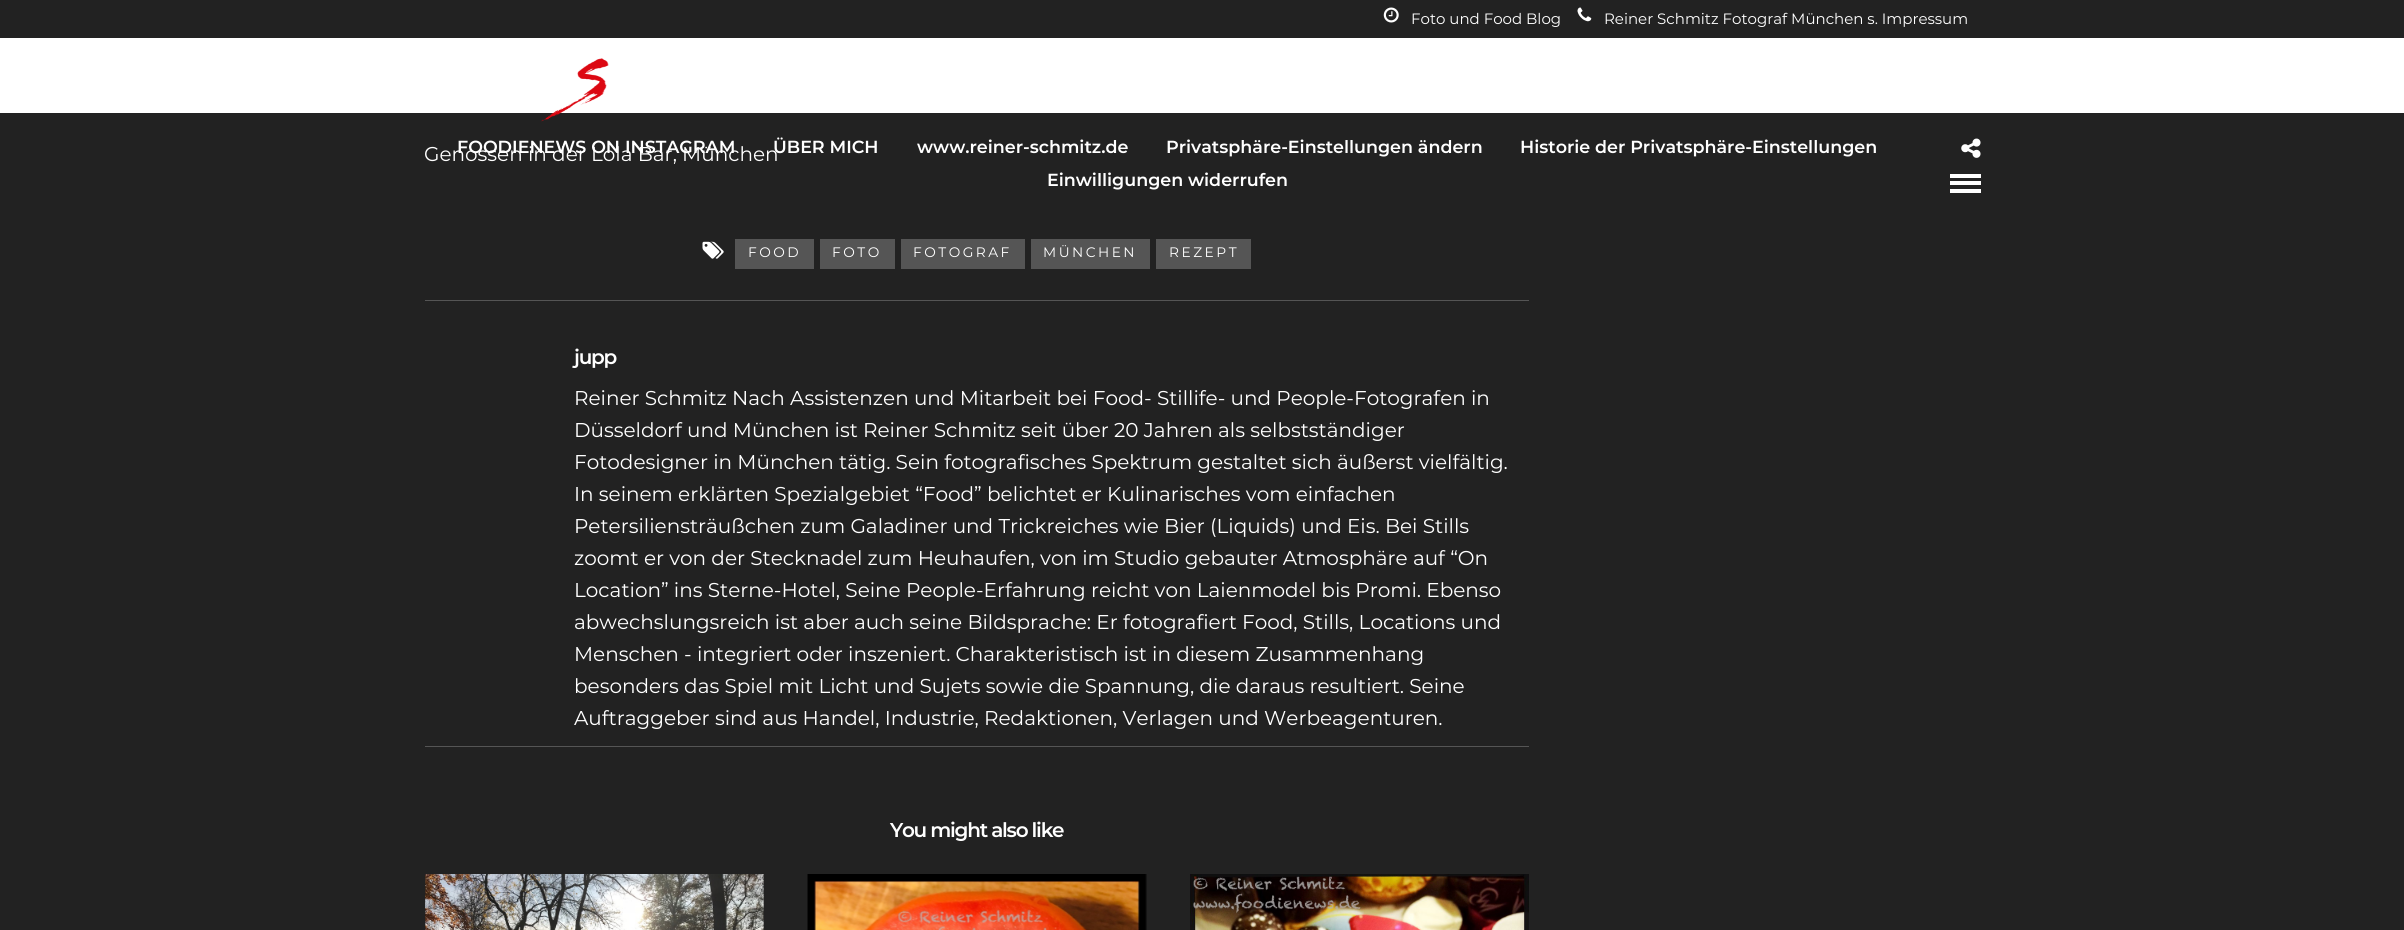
#include <cairo.h>
#include <math.h>
#include <stddef.h>

typedef struct { double x, y; const char *s; } line_t;
typedef struct { double x, y, w, h; unsigned color; } box_t;

static void ink(cairo_t *ctx, unsigned color) {
    cairo_set_source_rgb(ctx, (color >> 16) / 255.0, (color >> 8 & 255) / 255.0, (color & 255) / 255.0);
}

static void write_spaced(cairo_t *ctx, double x, double y, const char *s, double letter, double word) {
    cairo_move_to(ctx, x, y);
    while (*s) {
        char ch[5] = {0};
        int n = 0;
        do ch[n++] = *s++; while ((*s & 0xC0) == 0x80);
        cairo_show_text(ctx, ch);
        cairo_rel_move_to(ctx, letter + word * (*ch == ' '), 0);
    }
}

static void paste(cairo_t *ctx, const char *path, double x, double y, double w, double h) {
    cairo_surface_t *image = cairo_image_surface_create_from_png(path);
    cairo_save(ctx);
    cairo_set_source_surface(ctx, image, x, y);
    cairo_rectangle(ctx, x, y, w, h);
    cairo_fill(ctx);
    cairo_restore(ctx);
    cairo_surface_destroy(image);
}

int main(void) {
    cairo_surface_t *surface = cairo_image_surface_create(CAIRO_FORMAT_RGB24, 2404, 930);
    cairo_t *ctx = cairo_create(surface);
    cairo_font_options_t *options = cairo_font_options_create();
    cairo_font_options_set_hint_metrics(options, CAIRO_HINT_METRICS_OFF);
    cairo_font_options_set_hint_style(options, CAIRO_HINT_STYLE_NONE);
    cairo_set_font_options(ctx, options);
    cairo_set_miter_limit(ctx, 4);
    ink(ctx, 0x222222);
    cairo_paint(ctx);
    paste(ctx, "media/1.png", 1383, 7, 16, 16);
    cairo_select_font_face(ctx, "Montserrat", CAIRO_FONT_SLANT_NORMAL, CAIRO_FONT_WEIGHT_NORMAL);
    cairo_set_font_size(ctx, 15);
    ink(ctx, 0xFFFFFF);
    cairo_move_to(ctx, 1411, 24);
    cairo_show_text(ctx, "Foto und Food Blog");
    paste(ctx, "media/2.png", 1577, 7, 15, 15);
    cairo_move_to(ctx, 1604, 24);
    cairo_show_text(ctx, "Reiner Schmitz Fotograf München s. Impressum");
    cairo_rectangle(ctx, 0, 38, 2404, 75);
    cairo_fill(ctx);
    paste(ctx, "media/3.png", 541, 58, 68, 64);
    cairo_set_font_size(ctx, 20);
    cairo_move_to(ctx, 424, 161);
    cairo_show_text(ctx, "Genossen in der Lola Bar, München");
    cairo_select_font_face(ctx, "Montserrat SemiBold", CAIRO_FONT_SLANT_NORMAL, CAIRO_FONT_WEIGHT_NORMAL);
    cairo_set_font_size(ctx, 17.5);
    {
        static const line_t items[] = {
            {457, 153, "FOODIENEWS ON INSTAGRAM"},
            {773, 153, "ÜBER MICH"},
            {917, 153, "www.reiner-schmitz.de"},
            {1166, 153, "Privatsphäre-Einstellungen ändern"},
            {1520, 153, "Historie der Privatsphäre-Einstellungen"},
            {1047, 186, "Einwilligungen widerrufen"},
        };
        for (size_t i = 0; i < sizeof items / sizeof *items; i++) {
            cairo_move_to(ctx, items[i].x, items[i].y);
            cairo_show_text(ctx, items[i].s);
        }
    }
    paste(ctx, "media/4.png", 1961, 138, 20, 20);
    {
        static const box_t items[] = {
            {1950, 174, 31, 4, 0xFFFFFF},
            {1950, 181, 31, 4, 0xFFFFFF},
            {1950, 189, 31, 4, 0xFFFFFF},
        };
        for (size_t i = 0; i < sizeof items / sizeof *items; i++) {
            ink(ctx, items[i].color);
            cairo_rectangle(ctx, items[i].x, items[i].y, items[i].w, items[i].h);
            cairo_fill(ctx);
        }
    }
    paste(ctx, "media/5.png", 702, 241, 22, 18);
    ink(ctx, 0x555555);
    cairo_rectangle(ctx, 735, 239, 79, 30);
    cairo_fill(ctx);
    cairo_select_font_face(ctx, "Montserrat", CAIRO_FONT_SLANT_NORMAL, CAIRO_FONT_WEIGHT_NORMAL);
    cairo_set_font_size(ctx, 13.75);
    ink(ctx, 0xFFFFFF);
    write_spaced(ctx, 748, 257, "FOOD", 2.5, 0);
    ink(ctx, 0x555555);
    cairo_rectangle(ctx, 820, 239, 75, 30);
    cairo_fill(ctx);
    ink(ctx, 0xFFFFFF);
    write_spaced(ctx, 832, 257, "FOTO", 2.5, 0);
    ink(ctx, 0x555555);
    cairo_rectangle(ctx, 901, 239, 124, 30);
    cairo_fill(ctx);
    ink(ctx, 0xFFFFFF);
    write_spaced(ctx, 913, 257, "FOTOGRAF", 2.5, 0);
    ink(ctx, 0x555555);
    cairo_rectangle(ctx, 1031, 239, 119, 30);
    cairo_fill(ctx);
    ink(ctx, 0xFFFFFF);
    write_spaced(ctx, 1043, 257, "MÜNCHEN", 2.5, 0);
    ink(ctx, 0x555555);
    cairo_rectangle(ctx, 1156, 239, 95, 30);
    cairo_fill(ctx);
    ink(ctx, 0xFFFFFF);
    write_spaced(ctx, 1169, 257, "REZEPT", 2.5, 0);
    ink(ctx, 0x555555);
    cairo_rectangle(ctx, 425, 300, 1104, 1);
    cairo_fill(ctx);
    cairo_select_font_face(ctx, "Montserrat SemiBold", CAIRO_FONT_SLANT_NORMAL, CAIRO_FONT_WEIGHT_NORMAL);
    cairo_set_font_size(ctx, 20);
    ink(ctx, 0xFFFFFF);
    write_spaced(ctx, 574, 364, "jupp", -1.25, 0);
    cairo_select_font_face(ctx, "Montserrat", CAIRO_FONT_SLANT_NORMAL, CAIRO_FONT_WEIGHT_NORMAL);
    {
        static const line_t items[] = {
            {574, 405, "Reiner Schmitz Nach Assistenzen und Mitarbeit bei Food- Stillife- und People-Fotografen in"},
            {574, 437, "Düsseldorf und München ist Reiner Schmitz seit über 20 Jahren als selbstständiger"},
            {574, 469, "Fotodesigner in München tätig. Sein fotografisches Spektrum gestaltet sich äußerst vielfältig."},
            {574, 501, "In seinem erklärten Spezialgebiet “Food” belichtet er Kulinarisches vom einfachen"},
            {574, 533, "Petersiliensträußchen zum Galadiner und Trickreiches wie Bier (Liquids) und Eis. Bei Stills"},
            {574, 565, "zoomt er von der Stecknadel zum Heuhaufen, von im Studio gebauter Atmosphäre auf “On"},
            {574, 597, "Location” ins Sterne-Hotel, Seine People-Erfahrung reicht von Laienmodel bis Promi. Ebenso"},
            {574, 629, "abwechslungsreich ist aber auch seine Bildsprache: Er fotografiert Food, Stills, Locations und"},
            {574, 661, "Menschen - integriert oder inszeniert. Charakteristisch ist in diesem Zusammenhang"},
            {574, 693, "besonders das Spiel mit Licht und Sujets sowie die Spannung, die daraus resultiert. Seine"},
            {574, 725, "Auftraggeber sind aus Handel, Industrie, Redaktionen, Verlagen und Werbeagenturen."},
        };
        for (size_t i = 0; i < sizeof items / sizeof *items; i++) {
            cairo_move_to(ctx, items[i].x, items[i].y);
            cairo_show_text(ctx, items[i].s);
        }
    }
    ink(ctx, 0x555555);
    cairo_rectangle(ctx, 425, 746, 1104, 1);
    cairo_fill(ctx);
    cairo_select_font_face(ctx, "Montserrat SemiBold", CAIRO_FONT_SLANT_NORMAL, CAIRO_FONT_WEIGHT_NORMAL);
    ink(ctx, 0xFFFFFF);
    write_spaced(ctx, 890, 837, "You might also like", -1.25, 0);
    paste(ctx, "media/6.png", 425, 874, 339, 56);
    paste(ctx, "media/7.png", 807, 874, 340, 56);
    paste(ctx, "media/8.png", 1190, 874, 339, 56);
    cairo_surface_write_to_png(surface, "image.png");
    cairo_font_options_destroy(options);
    cairo_destroy(ctx);
    cairo_surface_destroy(surface);
    return 0;
}
